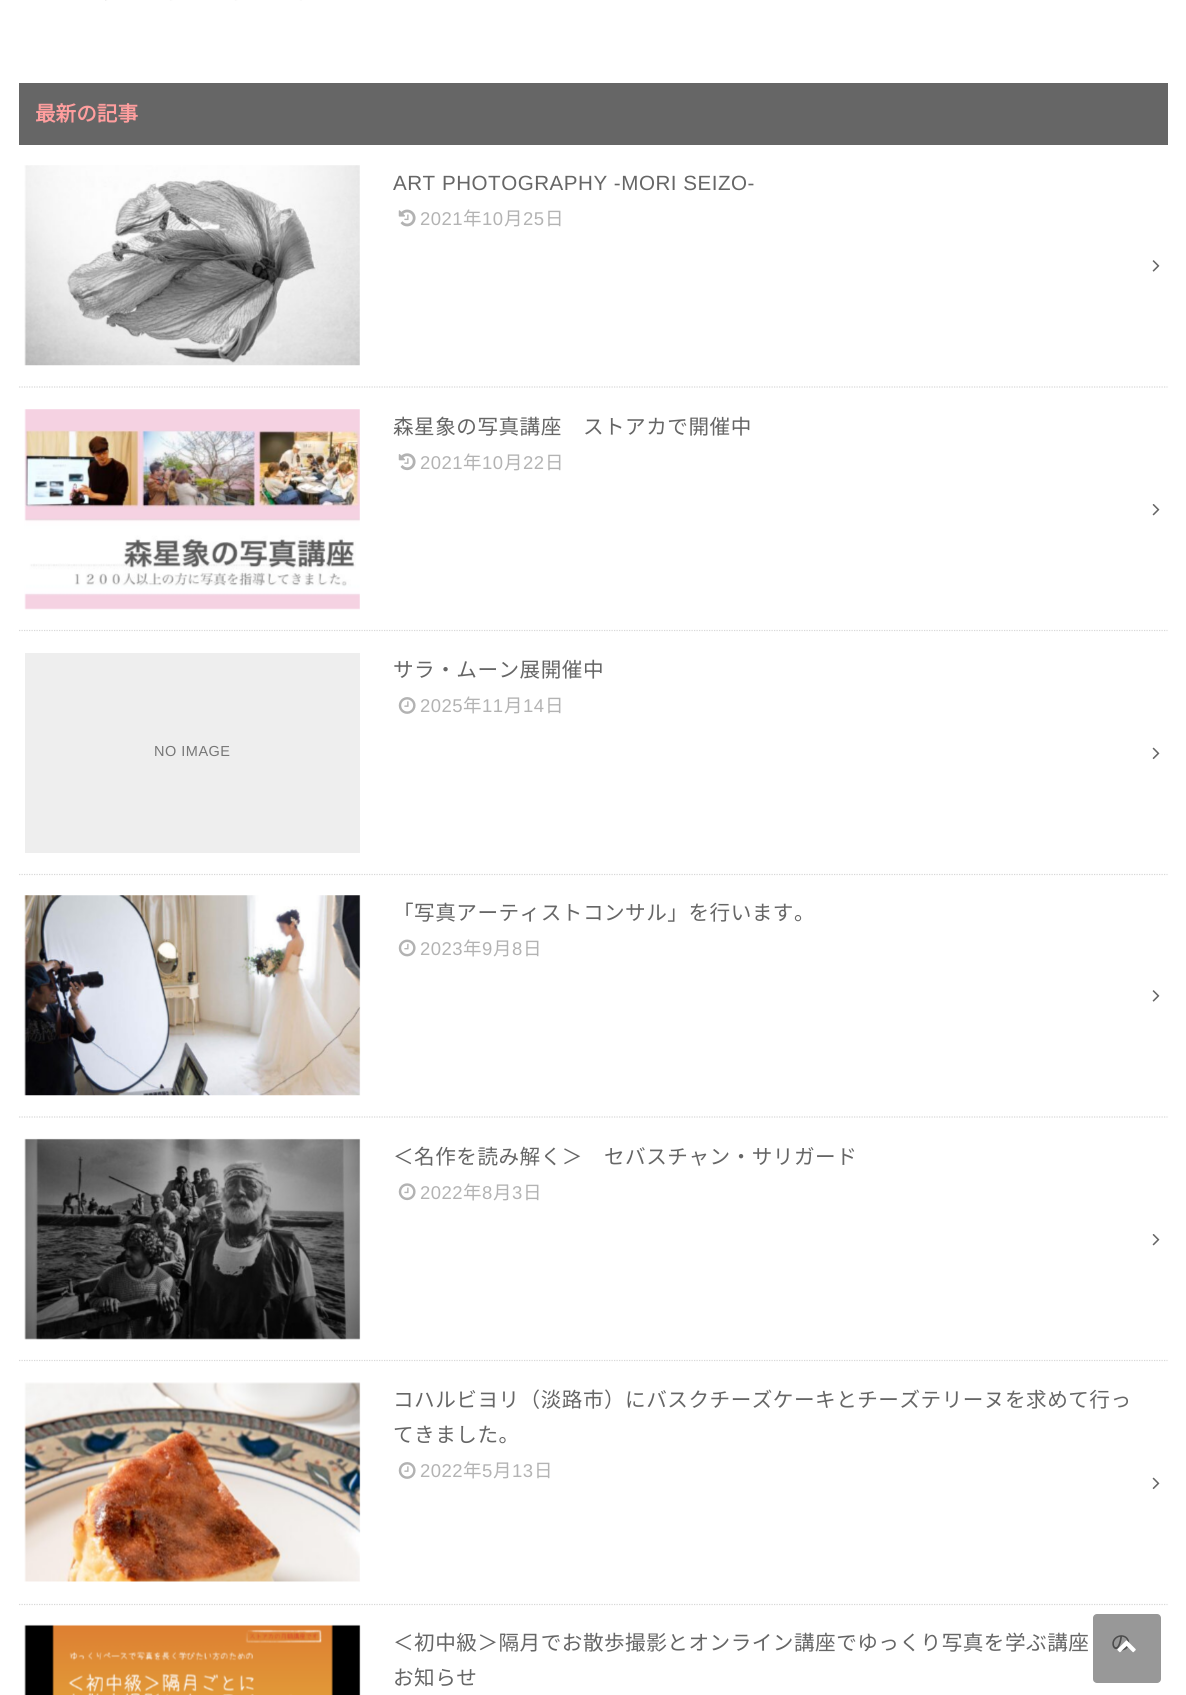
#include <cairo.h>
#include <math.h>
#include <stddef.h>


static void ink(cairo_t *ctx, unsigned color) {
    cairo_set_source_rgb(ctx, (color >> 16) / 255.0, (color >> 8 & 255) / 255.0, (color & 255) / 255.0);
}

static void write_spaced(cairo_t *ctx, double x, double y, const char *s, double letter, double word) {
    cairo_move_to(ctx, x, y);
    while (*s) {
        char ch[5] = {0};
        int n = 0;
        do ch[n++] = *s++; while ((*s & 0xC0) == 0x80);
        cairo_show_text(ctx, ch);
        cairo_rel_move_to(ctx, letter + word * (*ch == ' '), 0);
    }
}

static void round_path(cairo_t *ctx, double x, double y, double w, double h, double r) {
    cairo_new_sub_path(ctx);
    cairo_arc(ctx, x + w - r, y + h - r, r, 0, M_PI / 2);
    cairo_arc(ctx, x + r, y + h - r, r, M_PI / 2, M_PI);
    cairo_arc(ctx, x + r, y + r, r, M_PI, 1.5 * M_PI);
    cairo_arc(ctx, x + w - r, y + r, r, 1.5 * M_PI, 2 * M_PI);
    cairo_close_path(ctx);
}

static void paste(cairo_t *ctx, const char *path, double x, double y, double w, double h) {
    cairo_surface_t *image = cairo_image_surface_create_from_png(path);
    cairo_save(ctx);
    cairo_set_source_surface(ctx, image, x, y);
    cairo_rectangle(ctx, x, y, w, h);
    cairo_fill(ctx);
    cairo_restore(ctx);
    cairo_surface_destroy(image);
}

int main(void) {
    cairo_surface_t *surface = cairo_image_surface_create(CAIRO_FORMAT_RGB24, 1186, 1695);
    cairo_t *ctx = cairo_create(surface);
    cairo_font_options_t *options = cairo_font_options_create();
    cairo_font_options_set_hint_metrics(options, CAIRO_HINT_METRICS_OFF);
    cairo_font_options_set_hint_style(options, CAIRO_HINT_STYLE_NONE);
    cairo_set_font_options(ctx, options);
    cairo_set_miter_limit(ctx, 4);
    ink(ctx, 0xFFFFFF);
    cairo_paint(ctx);
    paste(ctx, "media/1.png", 105, 0, 197, 1);
    ink(ctx, 0x666666);
    cairo_rectangle(ctx, 19, 83, 1149, 62);
    cairo_fill(ctx);
    cairo_select_font_face(ctx, "Noto Sans JP", CAIRO_FONT_SLANT_NORMAL, CAIRO_FONT_WEIGHT_BOLD);
    cairo_set_font_size(ctx, 20.6);
    ink(ctx, 0xFF9E9E);
    cairo_move_to(ctx, 35, 121);
    cairo_show_text(ctx, "最新の記事");
    cairo_new_path(ctx);
    cairo_move_to(ctx, 19, 387);
    cairo_line_to(ctx, 1167.5, 387);
    ink(ctx, 0xD8D8D8);
    cairo_set_line_width(ctx, 1.2);
    cairo_set_dash(ctx, (double[]){1.25, 1.25}, 2, 0);
    cairo_stroke(ctx);
    paste(ctx, "media/2.png", 24, 165, 336, 201);
    cairo_select_font_face(ctx, "Liberation Sans", CAIRO_FONT_SLANT_NORMAL, CAIRO_FONT_WEIGHT_NORMAL);
    ink(ctx, 0x666666);
    write_spaced(ctx, 393, 190, "ART PHOTOGRAPHY -MORI SEIZO-", 0.5, 0);
    paste(ctx, "media/3.png", 398, 209, 18, 18);
    cairo_set_font_size(ctx, 18.5);
    ink(ctx, 0xB3B3B3);
    write_spaced(ctx, 420, 225, "2021", 0.5, 0);
    cairo_select_font_face(ctx, "Noto Sans JP Thin", CAIRO_FONT_SLANT_NORMAL, CAIRO_FONT_WEIGHT_NORMAL);
    write_spaced(ctx, 463, 225, "年", 0.5, 0);
    cairo_select_font_face(ctx, "Liberation Sans", CAIRO_FONT_SLANT_NORMAL, CAIRO_FONT_WEIGHT_NORMAL);
    write_spaced(ctx, 482, 225, "10", 0.5, 0);
    cairo_select_font_face(ctx, "Noto Sans JP Thin", CAIRO_FONT_SLANT_NORMAL, CAIRO_FONT_WEIGHT_NORMAL);
    write_spaced(ctx, 504, 225, "月", 0.5, 0);
    cairo_select_font_face(ctx, "Liberation Sans", CAIRO_FONT_SLANT_NORMAL, CAIRO_FONT_WEIGHT_NORMAL);
    write_spaced(ctx, 523, 225, "25", 0.5, 0);
    cairo_select_font_face(ctx, "Noto Sans JP Thin", CAIRO_FONT_SLANT_NORMAL, CAIRO_FONT_WEIGHT_NORMAL);
    write_spaced(ctx, 545, 225, "日", 0.5, 0);
    paste(ctx, "media/4.png", 1152, 260, 8, 12);
    cairo_new_path(ctx);
    cairo_move_to(ctx, 19, 630.5);
    cairo_line_to(ctx, 1167.5, 630.5);
    ink(ctx, 0xD8D8D8);
    cairo_stroke(ctx);
    paste(ctx, "media/5.png", 24, 409, 336, 201);
    cairo_set_font_size(ctx, 20.6);
    ink(ctx, 0x666666);
    write_spaced(ctx, 393, 434, "森星象の写真講座　ストアカで開催中", 0.5, 0);
    paste(ctx, "media/6.png", 398, 453, 18, 18);
    cairo_select_font_face(ctx, "Liberation Sans", CAIRO_FONT_SLANT_NORMAL, CAIRO_FONT_WEIGHT_NORMAL);
    cairo_set_font_size(ctx, 18.5);
    ink(ctx, 0xB3B3B3);
    write_spaced(ctx, 420, 469, "2021", 0.5, 0);
    cairo_select_font_face(ctx, "Noto Sans JP Thin", CAIRO_FONT_SLANT_NORMAL, CAIRO_FONT_WEIGHT_NORMAL);
    write_spaced(ctx, 463, 469, "年", 0.5, 0);
    cairo_select_font_face(ctx, "Liberation Sans", CAIRO_FONT_SLANT_NORMAL, CAIRO_FONT_WEIGHT_NORMAL);
    write_spaced(ctx, 482, 469, "10", 0.5, 0);
    cairo_select_font_face(ctx, "Noto Sans JP Thin", CAIRO_FONT_SLANT_NORMAL, CAIRO_FONT_WEIGHT_NORMAL);
    write_spaced(ctx, 504, 469, "月", 0.5, 0);
    cairo_select_font_face(ctx, "Liberation Sans", CAIRO_FONT_SLANT_NORMAL, CAIRO_FONT_WEIGHT_NORMAL);
    write_spaced(ctx, 523, 469, "22", 0.5, 0);
    cairo_select_font_face(ctx, "Noto Sans JP Thin", CAIRO_FONT_SLANT_NORMAL, CAIRO_FONT_WEIGHT_NORMAL);
    write_spaced(ctx, 545, 469, "日", 0.5, 0);
    paste(ctx, "media/7.png", 1152, 504, 8, 12);
    cairo_new_path(ctx);
    cairo_move_to(ctx, 19, 874.5);
    cairo_line_to(ctx, 1167.5, 874.5);
    ink(ctx, 0xD8D8D8);
    cairo_stroke(ctx);
    cairo_set_font_size(ctx, 20.6);
    ink(ctx, 0x666666);
    write_spaced(ctx, 393, 677, "サラ・ムーン展開催中", 0.5, 0);
    paste(ctx, "media/8.png", 398, 697, 18, 17);
    cairo_select_font_face(ctx, "Liberation Sans", CAIRO_FONT_SLANT_NORMAL, CAIRO_FONT_WEIGHT_NORMAL);
    cairo_set_font_size(ctx, 18.5);
    ink(ctx, 0xB3B3B3);
    write_spaced(ctx, 420, 712, "2025", 0.5, 0);
    cairo_select_font_face(ctx, "Noto Sans JP Thin", CAIRO_FONT_SLANT_NORMAL, CAIRO_FONT_WEIGHT_NORMAL);
    write_spaced(ctx, 463, 712, "年", 0.5, 0);
    cairo_select_font_face(ctx, "Liberation Sans", CAIRO_FONT_SLANT_NORMAL, CAIRO_FONT_WEIGHT_NORMAL);
    write_spaced(ctx, 482, 712, "11", 0.5, 0);
    cairo_select_font_face(ctx, "Noto Sans JP Thin", CAIRO_FONT_SLANT_NORMAL, CAIRO_FONT_WEIGHT_NORMAL);
    write_spaced(ctx, 504, 712, "月", 0.5, 0);
    cairo_select_font_face(ctx, "Liberation Sans", CAIRO_FONT_SLANT_NORMAL, CAIRO_FONT_WEIGHT_NORMAL);
    write_spaced(ctx, 523, 712, "14", 0.5, 0);
    cairo_select_font_face(ctx, "Noto Sans JP Thin", CAIRO_FONT_SLANT_NORMAL, CAIRO_FONT_WEIGHT_NORMAL);
    write_spaced(ctx, 545, 712, "日", 0.5, 0);
    ink(ctx, 0xEEEEEE);
    cairo_rectangle(ctx, 25, 653, 335, 200);
    cairo_fill(ctx);
    cairo_select_font_face(ctx, "Liberation Sans", CAIRO_FONT_SLANT_NORMAL, CAIRO_FONT_WEIGHT_NORMAL);
    cairo_set_font_size(ctx, 14.5);
    ink(ctx, 0x777777);
    write_spaced(ctx, 154, 756, "NO IMAGE", 0.5, 0);
    paste(ctx, "media/9.png", 1152, 747, 8, 13);
    cairo_new_path(ctx);
    cairo_move_to(ctx, 19, 1117);
    cairo_line_to(ctx, 1167.5, 1117);
    ink(ctx, 0xD8D8D8);
    cairo_stroke(ctx);
    paste(ctx, "media/10.png", 24, 895, 337, 201);
    cairo_select_font_face(ctx, "Noto Sans JP Thin", CAIRO_FONT_SLANT_NORMAL, CAIRO_FONT_WEIGHT_NORMAL);
    cairo_set_font_size(ctx, 20.6);
    ink(ctx, 0x666666);
    write_spaced(ctx, 393, 920, "「写真アーティストコンサル」を行います。", 0.5, 0);
    paste(ctx, "media/11.png", 398, 939, 18, 18);
    cairo_select_font_face(ctx, "Liberation Sans", CAIRO_FONT_SLANT_NORMAL, CAIRO_FONT_WEIGHT_NORMAL);
    cairo_set_font_size(ctx, 18.5);
    ink(ctx, 0xB3B3B3);
    write_spaced(ctx, 420, 955, "2023", 0.5, 0);
    cairo_select_font_face(ctx, "Noto Sans JP Thin", CAIRO_FONT_SLANT_NORMAL, CAIRO_FONT_WEIGHT_NORMAL);
    write_spaced(ctx, 463, 955, "年", 0.5, 0);
    cairo_select_font_face(ctx, "Liberation Sans", CAIRO_FONT_SLANT_NORMAL, CAIRO_FONT_WEIGHT_NORMAL);
    write_spaced(ctx, 482, 955, "9", 0.5, 0);
    cairo_select_font_face(ctx, "Noto Sans JP Thin", CAIRO_FONT_SLANT_NORMAL, CAIRO_FONT_WEIGHT_NORMAL);
    write_spaced(ctx, 493, 955, "月", 0.5, 0);
    cairo_select_font_face(ctx, "Liberation Sans", CAIRO_FONT_SLANT_NORMAL, CAIRO_FONT_WEIGHT_NORMAL);
    write_spaced(ctx, 512, 955, "8", 0.5, 0);
    cairo_select_font_face(ctx, "Noto Sans JP Thin", CAIRO_FONT_SLANT_NORMAL, CAIRO_FONT_WEIGHT_NORMAL);
    write_spaced(ctx, 523, 955, "日", 0.5, 0);
    paste(ctx, "media/4.png", 1152, 990, 8, 12);
    cairo_new_path(ctx);
    cairo_move_to(ctx, 19, 1360.5);
    cairo_line_to(ctx, 1167.5, 1360.5);
    ink(ctx, 0xD8D8D8);
    cairo_stroke(ctx);
    paste(ctx, "media/12.png", 24, 1138, 337, 202);
    cairo_set_font_size(ctx, 20.6);
    ink(ctx, 0x666666);
    write_spaced(ctx, 393, 1164, "＜名作を読み解く＞　セバスチャン・サリガード", 0.5, 0);
    paste(ctx, "media/13.png", 398, 1183, 18, 18);
    cairo_select_font_face(ctx, "Liberation Sans", CAIRO_FONT_SLANT_NORMAL, CAIRO_FONT_WEIGHT_NORMAL);
    cairo_set_font_size(ctx, 18.5);
    ink(ctx, 0xB3B3B3);
    write_spaced(ctx, 420, 1199, "2022", 0.5, 0);
    cairo_select_font_face(ctx, "Noto Sans JP Thin", CAIRO_FONT_SLANT_NORMAL, CAIRO_FONT_WEIGHT_NORMAL);
    write_spaced(ctx, 463, 1199, "年", 0.5, 0);
    cairo_select_font_face(ctx, "Liberation Sans", CAIRO_FONT_SLANT_NORMAL, CAIRO_FONT_WEIGHT_NORMAL);
    write_spaced(ctx, 482, 1199, "8", 0.5, 0);
    cairo_select_font_face(ctx, "Noto Sans JP Thin", CAIRO_FONT_SLANT_NORMAL, CAIRO_FONT_WEIGHT_NORMAL);
    write_spaced(ctx, 493, 1199, "月", 0.5, 0);
    cairo_select_font_face(ctx, "Liberation Sans", CAIRO_FONT_SLANT_NORMAL, CAIRO_FONT_WEIGHT_NORMAL);
    write_spaced(ctx, 512, 1199, "3", 0.5, 0);
    cairo_select_font_face(ctx, "Noto Sans JP Thin", CAIRO_FONT_SLANT_NORMAL, CAIRO_FONT_WEIGHT_NORMAL);
    write_spaced(ctx, 523, 1199, "日", 0.5, 0);
    paste(ctx, "media/7.png", 1152, 1234, 8, 12);
    cairo_new_path(ctx);
    cairo_move_to(ctx, 19, 1604.5);
    cairo_line_to(ctx, 1167.5, 1604.5);
    ink(ctx, 0xD8D8D8);
    cairo_stroke(ctx);
    paste(ctx, "media/14.png", 24, 1382, 337, 200);
    cairo_set_font_size(ctx, 20.6);
    ink(ctx, 0x666666);
    write_spaced(ctx, 393, 1407, "コハルビヨリ（淡路市）にバスクチーズケーキとチーズテリーヌを求めて行っ", 0.5, 0);
    write_spaced(ctx, 393, 1442, "てきました。", 0.5, 0);
    paste(ctx, "media/8.png", 398, 1462, 18, 17);
    cairo_select_font_face(ctx, "Liberation Sans", CAIRO_FONT_SLANT_NORMAL, CAIRO_FONT_WEIGHT_NORMAL);
    cairo_set_font_size(ctx, 18.5);
    ink(ctx, 0xB3B3B3);
    write_spaced(ctx, 420, 1477, "2022", 0.5, 0);
    cairo_select_font_face(ctx, "Noto Sans JP Thin", CAIRO_FONT_SLANT_NORMAL, CAIRO_FONT_WEIGHT_NORMAL);
    write_spaced(ctx, 463, 1477, "年", 0.5, 0);
    cairo_select_font_face(ctx, "Liberation Sans", CAIRO_FONT_SLANT_NORMAL, CAIRO_FONT_WEIGHT_NORMAL);
    write_spaced(ctx, 482, 1477, "5", 0.5, 0);
    cairo_select_font_face(ctx, "Noto Sans JP Thin", CAIRO_FONT_SLANT_NORMAL, CAIRO_FONT_WEIGHT_NORMAL);
    write_spaced(ctx, 493, 1477, "月", 0.5, 0);
    cairo_select_font_face(ctx, "Liberation Sans", CAIRO_FONT_SLANT_NORMAL, CAIRO_FONT_WEIGHT_NORMAL);
    write_spaced(ctx, 512, 1477, "13", 0.5, 0);
    cairo_select_font_face(ctx, "Noto Sans JP Thin", CAIRO_FONT_SLANT_NORMAL, CAIRO_FONT_WEIGHT_NORMAL);
    write_spaced(ctx, 534, 1477, "日", 0.5, 0);
    paste(ctx, "media/9.png", 1152, 1477, 8, 13);
    paste(ctx, "media/15.png", 24, 1624, 337, 71);
    cairo_set_font_size(ctx, 20.6);
    ink(ctx, 0x666666);
    write_spaced(ctx, 393, 1650, "＜初中級＞隔月でお散歩撮影とオンライン講座でゆっくり写真を学ぶ講座　の", 0.5, 0);
    write_spaced(ctx, 393, 1685, "お知らせ", 0.5, 0);
    cairo_set_source_rgba(ctx, 0.2, 0.2, 0.2, 0.5);
    round_path(ctx, 1093, 1614, 68, 69, 4);
    cairo_fill(ctx);
    paste(ctx, "media/16.png", 1117, 1640, 19, 13);
    cairo_surface_write_to_png(surface, "image.png");
    cairo_font_options_destroy(options);
    cairo_destroy(ctx);
    cairo_surface_destroy(surface);
    return 0;
}
